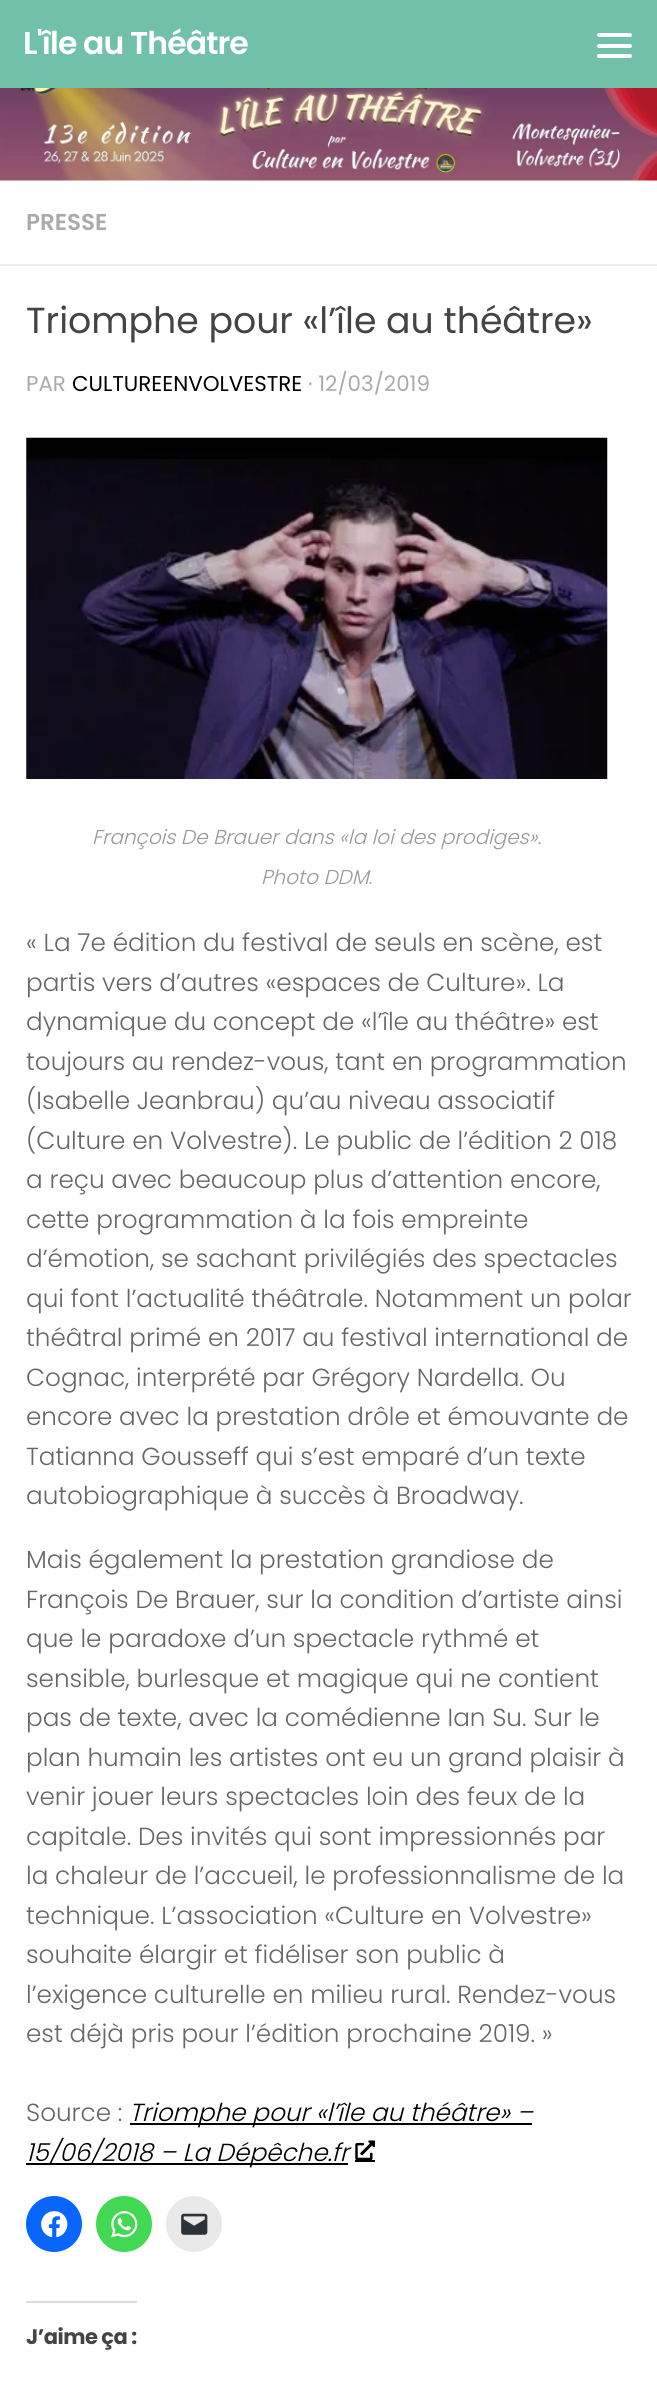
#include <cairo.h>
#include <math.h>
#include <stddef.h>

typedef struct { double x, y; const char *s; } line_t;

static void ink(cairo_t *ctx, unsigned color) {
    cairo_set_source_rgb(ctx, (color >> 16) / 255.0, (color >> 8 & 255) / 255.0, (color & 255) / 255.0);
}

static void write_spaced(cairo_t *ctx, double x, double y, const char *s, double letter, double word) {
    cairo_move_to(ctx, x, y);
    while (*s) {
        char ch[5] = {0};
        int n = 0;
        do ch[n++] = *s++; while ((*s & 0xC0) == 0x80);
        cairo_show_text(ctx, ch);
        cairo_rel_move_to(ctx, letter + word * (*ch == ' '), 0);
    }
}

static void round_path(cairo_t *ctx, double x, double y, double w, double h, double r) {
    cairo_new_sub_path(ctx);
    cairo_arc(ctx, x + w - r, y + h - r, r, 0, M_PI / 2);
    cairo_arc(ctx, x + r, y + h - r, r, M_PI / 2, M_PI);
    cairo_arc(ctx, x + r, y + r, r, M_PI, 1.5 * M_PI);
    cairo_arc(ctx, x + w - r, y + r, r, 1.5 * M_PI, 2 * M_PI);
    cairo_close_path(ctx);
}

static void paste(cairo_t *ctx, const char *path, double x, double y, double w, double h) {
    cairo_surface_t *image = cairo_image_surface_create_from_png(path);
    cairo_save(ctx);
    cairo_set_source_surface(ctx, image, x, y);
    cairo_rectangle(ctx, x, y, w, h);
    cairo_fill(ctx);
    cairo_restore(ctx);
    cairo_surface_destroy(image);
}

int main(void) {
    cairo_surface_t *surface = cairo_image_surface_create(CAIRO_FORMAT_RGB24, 657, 2390);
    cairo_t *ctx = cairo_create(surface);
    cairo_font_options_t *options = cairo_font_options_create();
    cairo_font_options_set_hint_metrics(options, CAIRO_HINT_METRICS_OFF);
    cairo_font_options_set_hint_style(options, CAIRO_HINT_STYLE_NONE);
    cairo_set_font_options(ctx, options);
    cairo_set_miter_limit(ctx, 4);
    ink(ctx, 0xFFFFFF);
    cairo_paint(ctx);
    ink(ctx, 0x71C1A8);
    cairo_rectangle(ctx, 0, 0, 657, 88);
    cairo_fill(ctx);
    cairo_select_font_face(ctx, "Poppins SemiBold", CAIRO_FONT_SLANT_NORMAL, CAIRO_FONT_WEIGHT_NORMAL);
    cairo_set_font_size(ctx, 31.5);
    ink(ctx, 0xFFFFFF);
    write_spaced(ctx, 23, 54, "L'île au Théâtre", -0.9, 0);
    round_path(ctx, 597, 33, 35, 4, 2);
    cairo_fill(ctx);
    round_path(ctx, 597, 44, 35, 4, 2);
    cairo_fill(ctx);
    round_path(ctx, 597, 54, 35, 4, 2);
    cairo_fill(ctx);
    paste(ctx, "media/1.png", 0, 88, 657, 93);
    ink(ctx, 0xEEEEEE);
    cairo_rectangle(ctx, 0, 264, 657, 2);
    cairo_fill(ctx);
    cairo_set_font_size(ctx, 23);
    ink(ctx, 0xAAAAAA);
    cairo_move_to(ctx, 26, 230);
    cairo_show_text(ctx, "PRESSE");
    cairo_select_font_face(ctx, "Poppins", CAIRO_FONT_SLANT_NORMAL, CAIRO_FONT_WEIGHT_NORMAL);
    cairo_set_font_size(ctx, 36.25);
    ink(ctx, 0x444444);
    cairo_move_to(ctx, 26, 333);
    cairo_show_text(ctx, "Triomphe pour «l’île au théâtre»");
    cairo_set_font_size(ctx, 21.4);
    ink(ctx, 0xAAAAAA);
    cairo_move_to(ctx, 26, 391);
    cairo_show_text(ctx, "PAR");
    ink(ctx, 0x000000);
    cairo_move_to(ctx, 72, 391);
    cairo_show_text(ctx, "CULTUREENVOLVESTRE");
    ink(ctx, 0xAAAAAA);
    cairo_move_to(ctx, 308, 391);
    cairo_show_text(ctx, "· 12/03/2019");
    paste(ctx, "media/2.png", 26, 437, 582, 342);
    cairo_select_font_face(ctx, "Poppins Light", CAIRO_FONT_SLANT_ITALIC, CAIRO_FONT_WEIGHT_NORMAL);
    cairo_set_font_size(ctx, 20.05);
    ink(ctx, 0x999999);
    cairo_move_to(ctx, 92, 844);
    cairo_show_text(ctx, "François De Brauer dans «la loi des prodiges».");
    cairo_move_to(ctx, 261, 884);
    cairo_show_text(ctx, "Photo DDM.");
    cairo_select_font_face(ctx, "Poppins Light", CAIRO_FONT_SLANT_NORMAL, CAIRO_FONT_WEIGHT_NORMAL);
    cairo_set_font_size(ctx, 24.7);
    ink(ctx, 0x666666);
    {
        static const line_t items[] = {
            {26, 951, "« La 7e édition du festival de seuls en scène, est"},
            {26, 991, "partis vers d’autres «espaces de Culture». La"},
            {26, 1030, "dynamique du concept de «l’île au théâtre» est"},
            {26, 1070, "toujours au rendez-vous, tant en programmation"},
            {26, 1109, "(Isabelle Jeanbrau) qu’au niveau associatif"},
            {26, 1149, "(Culture en Volvestre). Le public de l’édition 2 018"},
            {26, 1188, "a reçu avec beaucoup plus d’attention encore,"},
            {26, 1228, "cette programmation à la fois empreinte"},
            {26, 1267, "d’émotion, se sachant privilégiés des spectacles"},
            {26, 1307, "qui font l’actualité théâtrale. Notamment un polar"},
            {26, 1346, "théâtral primé en 2017 au festival international de"},
            {26, 1386, "Cognac, interprété par Grégory Nardella. Ou"},
            {26, 1425, "encore avec la prestation drôle et émouvante de"},
            {26, 1465, "Tatianna Gousseff qui s’est emparé d’un texte"},
            {26, 1504, "autobiographique à succès à Broadway."},
            {26, 1568, "Mais également la prestation grandiose de"},
            {26, 1608, "François De Brauer, sur la condition d’artiste ainsi"},
            {26, 1647, "que le paradoxe d’un spectacle rythmé et"},
            {26, 1687, "sensible, burlesque et magique qui ne contient"},
            {26, 1726, "pas de texte, avec la comédienne Ian Su. Sur le"},
            {26, 1766, "plan humain les artistes ont eu un grand plaisir à"},
            {26, 1805, "venir jouer leurs spectacles loin des feux de la"},
            {26, 1845, "capitale. Des invités qui sont impressionnés par"},
            {26, 1884, "la chaleur de l’accueil, le professionnalisme de la"},
            {26, 1924, "technique. L’association «Culture en Volvestre»"},
            {26, 1963, "souhaite élargir et fidéliser son public à"},
            {26, 2003, "l’exigence culturelle en milieu rural. Rendez-vous"},
            {26, 2042, "est déjà pris pour l’édition prochaine 2019. »"},
            {26, 2121, "Source :"},
        };
        for (size_t i = 0; i < sizeof items / sizeof *items; i++) {
            cairo_move_to(ctx, items[i].x, items[i].y);
            cairo_show_text(ctx, items[i].s);
        }
    }
    ink(ctx, 0x000000);
    cairo_rectangle(ctx, 130, 2123, 402, 2);
    cairo_fill(ctx);
    cairo_select_font_face(ctx, "Poppins Light", CAIRO_FONT_SLANT_ITALIC, CAIRO_FONT_WEIGHT_NORMAL);
    cairo_move_to(ctx, 129, 2121);
    cairo_show_text(ctx, "Triomphe pour «l’île au théâtre» –");
    cairo_rectangle(ctx, 26, 2163, 322, 2);
    cairo_fill(ctx);
    cairo_move_to(ctx, 26, 2161);
    cairo_show_text(ctx, "15/06/2018 – La Dépêche.fr");
    cairo_rectangle(ctx, 355, 2160, 20, 2);
    cairo_fill(ctx);
    paste(ctx, "media/3.png", 355, 2140, 20, 20);
    ink(ctx, 0x0866FF);
    cairo_arc(ctx, 54, 2224, 28, 0, 2 * M_PI);
    cairo_fill(ctx);
    paste(ctx, "media/4.png", 41, 2211, 27, 27);
    ink(ctx, 0x43D854);
    cairo_arc(ctx, 124, 2224, 28, 0, 2 * M_PI);
    cairo_fill(ctx);
    paste(ctx, "media/5.png", 111, 2211, 27, 27);
    ink(ctx, 0xE9E9E9);
    cairo_arc(ctx, 194, 2224, 28, 0, 2 * M_PI);
    cairo_fill(ctx);
    paste(ctx, "media/6.png", 181, 2213, 27, 22);
    ink(ctx, 0xDCDCDE);
    cairo_rectangle(ctx, 26, 2301, 111, 2);
    cairo_fill(ctx);
    cairo_select_font_face(ctx, "Poppins", CAIRO_FONT_SLANT_NORMAL, CAIRO_FONT_WEIGHT_BOLD);
    cairo_set_font_size(ctx, 21);
    ink(ctx, 0x444444);
    write_spaced(ctx, 26, 2344, "J’aime ça :", -0.5, 0);
    cairo_surface_write_to_png(surface, "image.png");
    cairo_font_options_destroy(options);
    cairo_destroy(ctx);
    cairo_surface_destroy(surface);
    return 0;
}
